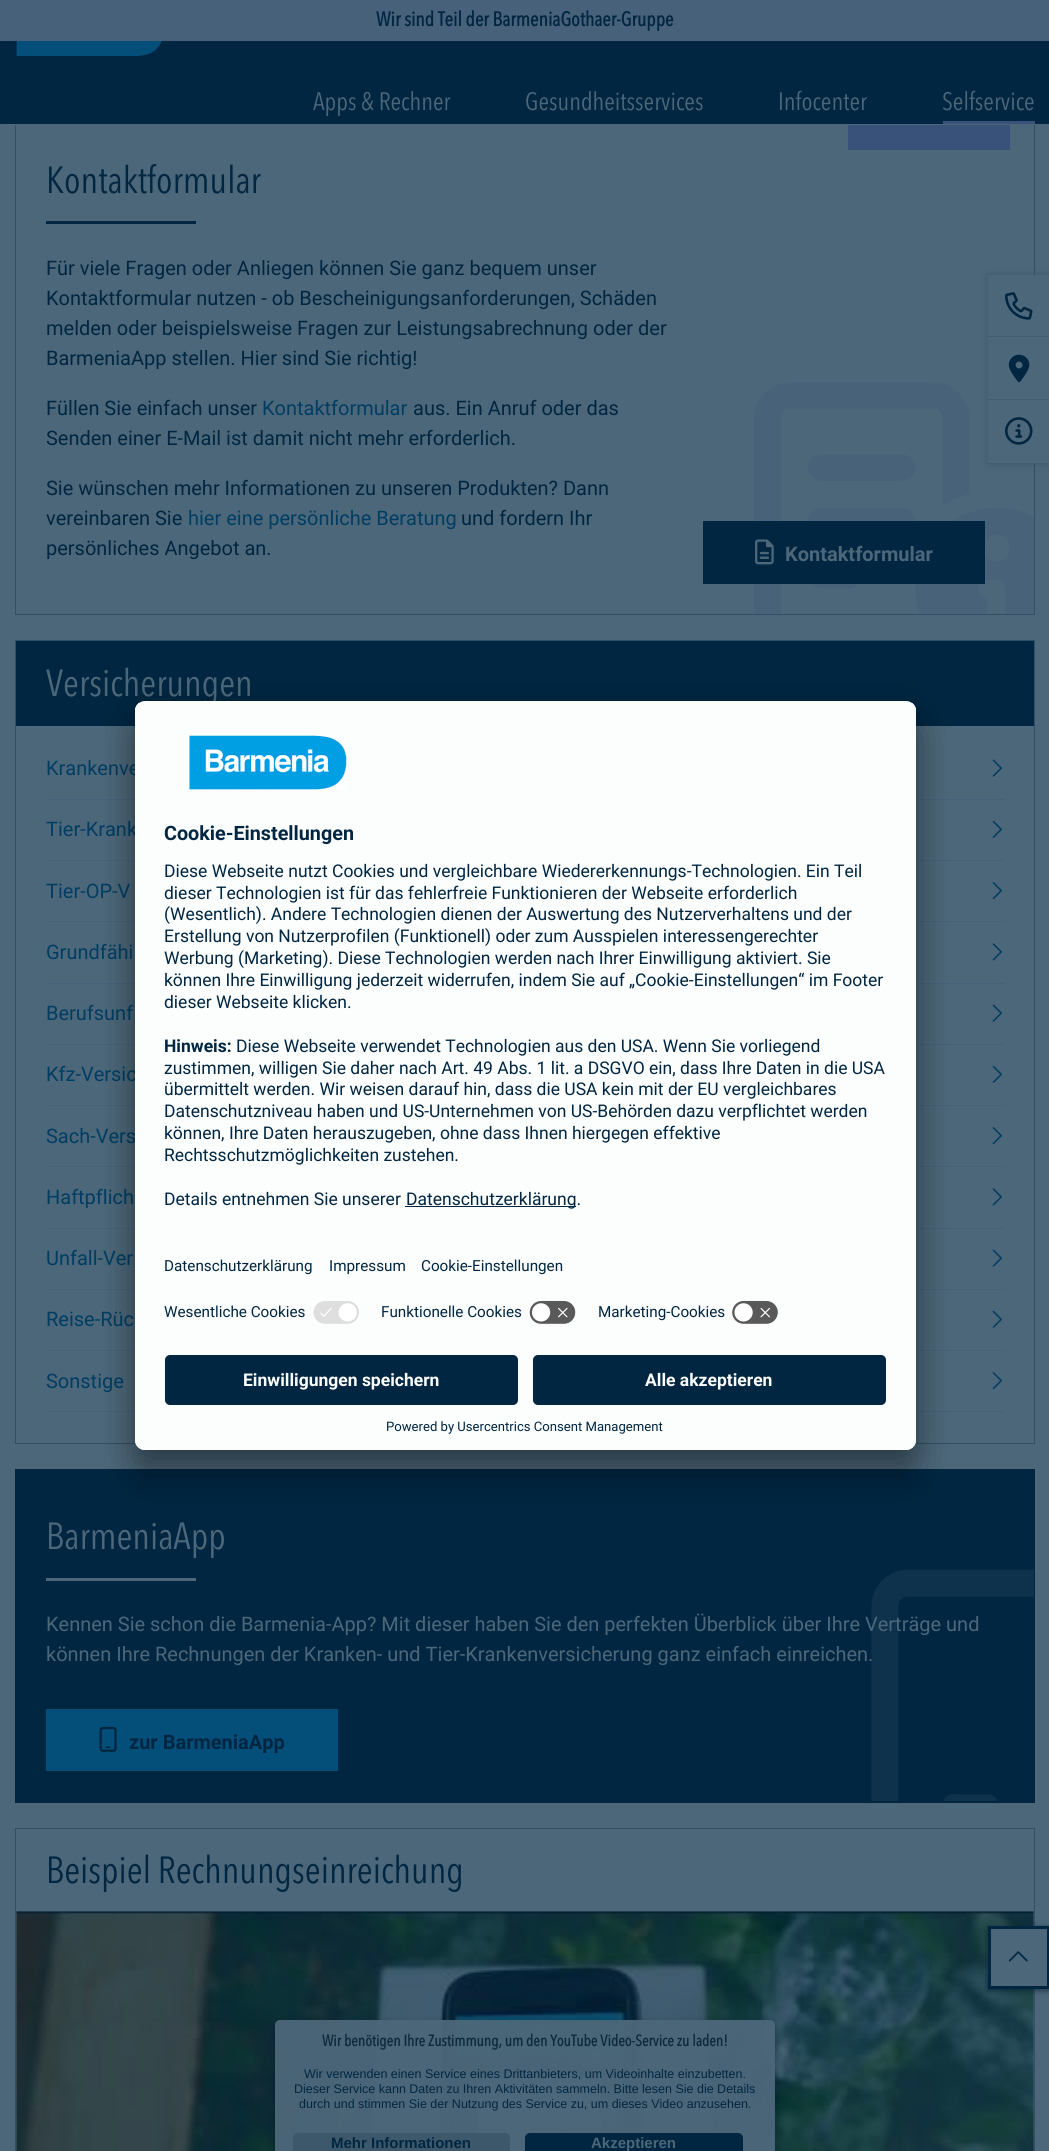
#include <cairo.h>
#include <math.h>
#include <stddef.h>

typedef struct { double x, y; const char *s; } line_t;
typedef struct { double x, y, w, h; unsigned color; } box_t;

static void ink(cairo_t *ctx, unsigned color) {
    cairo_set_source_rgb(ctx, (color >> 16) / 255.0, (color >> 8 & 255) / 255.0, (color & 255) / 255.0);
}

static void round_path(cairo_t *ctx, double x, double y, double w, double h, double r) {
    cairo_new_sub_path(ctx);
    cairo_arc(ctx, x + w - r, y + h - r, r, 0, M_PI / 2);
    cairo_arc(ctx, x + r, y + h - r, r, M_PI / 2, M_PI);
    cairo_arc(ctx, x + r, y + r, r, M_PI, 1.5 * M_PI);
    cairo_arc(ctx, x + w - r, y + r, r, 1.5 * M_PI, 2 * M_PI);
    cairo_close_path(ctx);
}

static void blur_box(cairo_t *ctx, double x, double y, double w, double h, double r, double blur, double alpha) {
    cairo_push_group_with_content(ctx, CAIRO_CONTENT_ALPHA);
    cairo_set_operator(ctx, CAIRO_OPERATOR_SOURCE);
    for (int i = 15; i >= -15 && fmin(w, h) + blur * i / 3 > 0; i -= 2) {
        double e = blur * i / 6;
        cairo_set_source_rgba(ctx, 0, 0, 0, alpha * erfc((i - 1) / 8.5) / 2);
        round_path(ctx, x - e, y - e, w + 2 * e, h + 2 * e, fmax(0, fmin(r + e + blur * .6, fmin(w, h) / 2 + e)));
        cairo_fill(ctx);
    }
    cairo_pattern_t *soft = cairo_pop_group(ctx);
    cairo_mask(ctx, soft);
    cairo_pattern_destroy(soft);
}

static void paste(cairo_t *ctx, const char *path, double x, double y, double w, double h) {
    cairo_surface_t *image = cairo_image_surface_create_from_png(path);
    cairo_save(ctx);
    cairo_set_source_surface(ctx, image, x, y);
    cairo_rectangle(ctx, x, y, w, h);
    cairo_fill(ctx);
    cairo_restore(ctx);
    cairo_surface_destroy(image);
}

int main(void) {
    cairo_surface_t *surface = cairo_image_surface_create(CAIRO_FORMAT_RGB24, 1049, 2151);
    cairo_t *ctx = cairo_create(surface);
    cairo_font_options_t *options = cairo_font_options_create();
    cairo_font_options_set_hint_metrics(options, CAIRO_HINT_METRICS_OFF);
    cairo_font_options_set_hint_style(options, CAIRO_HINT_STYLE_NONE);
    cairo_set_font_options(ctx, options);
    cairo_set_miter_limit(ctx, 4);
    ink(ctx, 0x4C6779);
    cairo_paint(ctx);
    ink(ctx, 0x47617A);
    cairo_rectangle(ctx, 0, 0, 1049, 41);
    cairo_fill(ctx);
    cairo_select_font_face(ctx, "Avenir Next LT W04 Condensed", CAIRO_FONT_SLANT_NORMAL, CAIRO_FONT_WEIGHT_BOLD);
    cairo_set_font_size(ctx, 20);
    ink(ctx, 0x002641);
    cairo_move_to(ctx, 376, 26);
    cairo_show_text(ctx, "Wir sind Teil der BarmeniaGothaer-Gruppe");
    cairo_rectangle(ctx, 15.5, 113.5, 1019, 501);
    ink(ctx, 0x315067);
    cairo_set_line_width(ctx, 1);
    cairo_stroke(ctx);
    ink(ctx, 0x002641);
    cairo_rectangle(ctx, 0, 41, 1049, 83);
    cairo_fill(ctx);
    paste(ctx, "media/1.png", 16, 41, 146, 15);
    cairo_select_font_face(ctx, "Avenir Next LT W04 Condensed", CAIRO_FONT_SLANT_NORMAL, CAIRO_FONT_WEIGHT_NORMAL);
    cairo_set_font_size(ctx, 25);
    ink(ctx, 0x4D677A);
    {
        static const line_t items[] = {
            {313, 110, "Apps & Rechner"},
            {525, 110, "Gesundheitsservices"},
            {778, 110, "Infocenter"},
            {942, 110, "Selfservice"},
        };
        for (size_t i = 0; i < sizeof items / sizeof *items; i++) {
            cairo_move_to(ctx, items[i].x, items[i].y);
            cairo_show_text(ctx, items[i].s);
        }
    }
    {
        static const box_t items[] = {
            {943, 121, 92, 3, 0x38527A},
            {15, 124, 1020, 1, 0x4D677A},
            {848, 125, 162, 25, 0x38527A},
        };
        for (size_t i = 0; i < sizeof items / sizeof *items; i++) {
            ink(ctx, items[i].color);
            cairo_rectangle(ctx, items[i].x, items[i].y, items[i].w, items[i].h);
            cairo_fill(ctx);
        }
    }
    cairo_set_font_size(ctx, 37.5);
    ink(ctx, 0x002641);
    cairo_move_to(ctx, 46, 193);
    cairo_show_text(ctx, "Kontaktformular");
    cairo_rectangle(ctx, 46, 221, 150, 3);
    cairo_fill(ctx);
    cairo_select_font_face(ctx, "Roboto", CAIRO_FONT_SLANT_NORMAL, CAIRO_FONT_WEIGHT_NORMAL);
    cairo_set_font_size(ctx, 20);
    {
        static const line_t items[] = {
            {46, 275, "Für viele Fragen oder Anliegen können Sie ganz bequem unser"},
            {46, 305, "Kontaktformular nutzen - ob Bescheinigungsanforderungen, Schäden"},
            {46, 335, "melden oder beispielsweise Fragen zur Leistungsabrechnung oder der"},
            {46, 365, "BarmeniaApp stellen. Hier sind Sie richtig!"},
            {46, 415, "Füllen Sie einfach unser"},
        };
        for (size_t i = 0; i < sizeof items / sizeof *items; i++) {
            cairo_move_to(ctx, items[i].x, items[i].y);
            cairo_show_text(ctx, items[i].s);
        }
    }
    ink(ctx, 0x003D63);
    cairo_move_to(ctx, 262, 415);
    cairo_show_text(ctx, "Kontaktformular");
    ink(ctx, 0x002641);
    {
        static const line_t items[] = {
            {413, 415, "aus. Ein Anruf oder das"},
            {46, 445, "Senden einer E-Mail ist damit nicht mehr erforderlich."},
            {46, 495, "Sie wünschen mehr Informationen zu unseren Produkten? Dann"},
            {46, 525, "vereinbaren Sie"},
        };
        for (size_t i = 0; i < sizeof items / sizeof *items; i++) {
            cairo_move_to(ctx, items[i].x, items[i].y);
            cairo_show_text(ctx, items[i].s);
        }
    }
    ink(ctx, 0x003D63);
    cairo_move_to(ctx, 188, 525);
    cairo_show_text(ctx, "hier eine persönliche Beratung");
    ink(ctx, 0x002641);
    cairo_move_to(ctx, 461, 525);
    cairo_show_text(ctx, "und fordern Ihr");
    cairo_move_to(ctx, 46, 555);
    cairo_show_text(ctx, "persönliches Angebot an.");
    paste(ctx, "media/2.png", 754, 382, 280, 232);
    cairo_rectangle(ctx, 703, 521, 282, 63);
    cairo_fill(ctx);
    paste(ctx, "media/3.png", 755, 539, 19, 26);
    cairo_select_font_face(ctx, "Roboto", CAIRO_FONT_SLANT_NORMAL, CAIRO_FONT_WEIGHT_BOLD);
    ink(ctx, 0x4D677A);
    cairo_move_to(ctx, 785, 561);
    cairo_show_text(ctx, "Kontaktformular");
    cairo_rectangle(ctx, 15.5, 640.5, 1019, 803);
    ink(ctx, 0x315067);
    cairo_stroke(ctx);
    ink(ctx, 0x002641);
    cairo_rectangle(ctx, 16, 641, 1018, 85);
    cairo_fill(ctx);
    cairo_select_font_face(ctx, "Avenir Next LT W04 Condensed", CAIRO_FONT_SLANT_NORMAL, CAIRO_FONT_WEIGHT_NORMAL);
    cairo_set_font_size(ctx, 37.5);
    ink(ctx, 0x4D677A);
    cairo_move_to(ctx, 46, 696);
    cairo_show_text(ctx, "Versicherungen");
    ink(ctx, 0x47617A);
    cairo_rectangle(ctx, 46, 799, 958, 1);
    cairo_fill(ctx);
    cairo_select_font_face(ctx, "Roboto", CAIRO_FONT_SLANT_NORMAL, CAIRO_FONT_WEIGHT_NORMAL);
    cairo_set_font_size(ctx, 20);
    ink(ctx, 0x003D63);
    cairo_move_to(ctx, 46, 775);
    cairo_show_text(ctx, "Krankenve");
    paste(ctx, "media/4.png", 992, 759, 10, 18);
    ink(ctx, 0x47617A);
    cairo_rectangle(ctx, 46, 860, 958, 1);
    cairo_fill(ctx);
    ink(ctx, 0x003D63);
    cairo_move_to(ctx, 46, 836);
    cairo_show_text(ctx, "Tier-Krank");
    paste(ctx, "media/5.png", 992, 820, 10, 18);
    ink(ctx, 0x47617A);
    cairo_rectangle(ctx, 46, 921, 958, 1);
    cairo_fill(ctx);
    ink(ctx, 0x003D63);
    cairo_move_to(ctx, 46, 898);
    cairo_show_text(ctx, "Tier-OP-V");
    paste(ctx, "media/6.png", 992, 882, 10, 18);
    ink(ctx, 0x47617A);
    cairo_rectangle(ctx, 46, 983, 958, 1);
    cairo_fill(ctx);
    ink(ctx, 0x003D63);
    cairo_move_to(ctx, 46, 959);
    cairo_show_text(ctx, "Grundfähi");
    paste(ctx, "media/7.png", 992, 943, 10, 18);
    ink(ctx, 0x47617A);
    cairo_rectangle(ctx, 46, 1044, 958, 1);
    cairo_fill(ctx);
    ink(ctx, 0x003D63);
    cairo_move_to(ctx, 46, 1020);
    cairo_show_text(ctx, "Berufsunf");
    paste(ctx, "media/4.png", 992, 1004, 10, 18);
    ink(ctx, 0x47617A);
    cairo_rectangle(ctx, 46, 1105, 958, 1);
    cairo_fill(ctx);
    ink(ctx, 0x003D63);
    cairo_move_to(ctx, 46, 1081);
    cairo_show_text(ctx, "Kfz-Versic");
    paste(ctx, "media/5.png", 992, 1065, 10, 18);
    ink(ctx, 0x47617A);
    cairo_rectangle(ctx, 46, 1166, 958, 1);
    cairo_fill(ctx);
    ink(ctx, 0x003D63);
    cairo_move_to(ctx, 46, 1143);
    cairo_show_text(ctx, "Sach-Vers");
    paste(ctx, "media/6.png", 992, 1127, 10, 18);
    ink(ctx, 0x47617A);
    cairo_rectangle(ctx, 46, 1228, 958, 1);
    cairo_fill(ctx);
    ink(ctx, 0x003D63);
    cairo_move_to(ctx, 46, 1204);
    cairo_show_text(ctx, "Haftpflich");
    paste(ctx, "media/7.png", 992, 1188, 10, 18);
    ink(ctx, 0x47617A);
    cairo_rectangle(ctx, 46, 1289, 958, 1);
    cairo_fill(ctx);
    ink(ctx, 0x003D63);
    cairo_move_to(ctx, 46, 1265);
    cairo_show_text(ctx, "Unfall-Ver");
    paste(ctx, "media/4.png", 992, 1249, 10, 18);
    ink(ctx, 0x47617A);
    cairo_rectangle(ctx, 46, 1350, 958, 1);
    cairo_fill(ctx);
    ink(ctx, 0x003D63);
    cairo_move_to(ctx, 46, 1326);
    cairo_show_text(ctx, "Reise-Rüc");
    paste(ctx, "media/5.png", 992, 1310, 10, 18);
    ink(ctx, 0x47617A);
    cairo_rectangle(ctx, 46, 1411, 958, 1);
    cairo_fill(ctx);
    ink(ctx, 0x003D63);
    cairo_move_to(ctx, 46, 1388);
    cairo_show_text(ctx, "Sonstige");
    paste(ctx, "media/6.png", 992, 1372, 10, 18);
    ink(ctx, 0x002641);
    cairo_rectangle(ctx, 15, 1469, 1020, 334);
    cairo_fill(ctx);
    cairo_select_font_face(ctx, "Avenir Next LT W04 Condensed", CAIRO_FONT_SLANT_NORMAL, CAIRO_FONT_WEIGHT_NORMAL);
    cairo_set_font_size(ctx, 37.5);
    ink(ctx, 0x4D677A);
    cairo_move_to(ctx, 46, 1549);
    cairo_show_text(ctx, "BarmeniaApp");
    cairo_rectangle(ctx, 46, 1578, 150, 3);
    cairo_fill(ctx);
    paste(ctx, "media/9.png", 871, 1569, 163, 232);
    cairo_select_font_face(ctx, "Roboto", CAIRO_FONT_SLANT_NORMAL, CAIRO_FONT_WEIGHT_NORMAL);
    cairo_set_font_size(ctx, 20);
    cairo_move_to(ctx, 46, 1631);
    cairo_show_text(ctx, "Kennen Sie schon die Barmenia-App? Mit dieser haben Sie den perfekten Überblick über Ihre Verträge und");
    cairo_move_to(ctx, 46, 1661);
    cairo_show_text(ctx, "können Ihre Rechnungen der Kranken- und Tier-Krankenversicherung ganz einfach einreichen.");
    ink(ctx, 0x044E7A);
    cairo_rectangle(ctx, 46, 1709, 292, 62);
    cairo_fill(ctx);
    paste(ctx, "media/8.png", 99, 1726, 18, 26);
    cairo_select_font_face(ctx, "Roboto", CAIRO_FONT_SLANT_NORMAL, CAIRO_FONT_WEIGHT_BOLD);
    ink(ctx, 0x002641);
    cairo_move_to(ctx, 129, 1749);
    cairo_show_text(ctx, "zur BarmeniaApp");
    cairo_rectangle(ctx, 15.5, 1828.5, 1019, 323);
    ink(ctx, 0x315067);
    cairo_stroke(ctx);
    cairo_select_font_face(ctx, "Avenir Next LT W04 Condensed", CAIRO_FONT_SLANT_NORMAL, CAIRO_FONT_WEIGHT_NORMAL);
    cairo_set_font_size(ctx, 37.5);
    ink(ctx, 0x002641);
    cairo_move_to(ctx, 46, 1883);
    cairo_show_text(ctx, "Beispiel Rechnungseinreichung");
    paste(ctx, "media/10.png", 16, 1911, 1018, 240);
    cairo_save(ctx);
    cairo_set_fill_rule(ctx, CAIRO_FILL_RULE_EVEN_ODD);
    cairo_new_path(ctx);
    cairo_move_to(ctx, 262, 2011);
    cairo_line_to(ctx, 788, 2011);
    cairo_line_to(ctx, 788, 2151);
    cairo_line_to(ctx, 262, 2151);
    cairo_close_path(ctx);
    cairo_move_to(ctx, 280, 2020);
    cairo_line_to(ctx, 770, 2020);
    cairo_curve_to(ctx, 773, 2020, 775, 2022, 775, 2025);
    cairo_line_to(ctx, 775, 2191);
    cairo_curve_to(ctx, 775, 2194, 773, 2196, 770, 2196);
    cairo_line_to(ctx, 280, 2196);
    cairo_curve_to(ctx, 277, 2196, 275, 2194, 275, 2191);
    cairo_line_to(ctx, 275, 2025);
    cairo_curve_to(ctx, 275, 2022, 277, 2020, 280, 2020);
    cairo_close_path(ctx);
    cairo_clip(ctx);
    ink(ctx, 0x001B2E);
    blur_box(ctx, 275, 2024, 500, 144, 5, 4, 0.5);
    cairo_restore(ctx);
    cairo_set_source_rgba(ctx, 0.302, 0.404, 0.478, 0.95);
    round_path(ctx, 275, 2020, 500, 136, 5);
    cairo_fill(ctx);
    cairo_select_font_face(ctx, "Avenir Next LT W04 Condensed", CAIRO_FONT_SLANT_NORMAL, CAIRO_FONT_WEIGHT_BOLD);
    cairo_set_font_size(ctx, 15.6);
    ink(ctx, 0x0E293C);
    cairo_move_to(ctx, 322, 2046);
    cairo_show_text(ctx, "Wir benötigen Ihre Zustimmung, um den YouTube Video-Service zu laden!");
    cairo_select_font_face(ctx, "Liberation Sans", CAIRO_FONT_SLANT_NORMAL, CAIRO_FONT_WEIGHT_NORMAL);
    cairo_set_font_size(ctx, 12.5);
    ink(ctx, 0x002641);
    {
        static const line_t items[] = {
            {304, 2078, "Wir verwenden einen Service eines Drittanbieters, um Videoinhalte einzubetten."},
            {294, 2093, "Dieser Service kann Daten zu Ihren Aktivitäten sammeln. Bitte lesen Sie die Details"},
            {299, 2108, "durch und stimmen Sie der Nutzung des Service zu, um dieses Video anzusehen."},
        };
        for (size_t i = 0; i < sizeof items / sizeof *items; i++) {
            cairo_move_to(ctx, items[i].x, items[i].y);
            cairo_show_text(ctx, items[i].s);
        }
    }
    ink(ctx, 0x3E586B);
    round_path(ctx, 293, 2133, 217, 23, 5);
    cairo_fill(ctx);
    cairo_select_font_face(ctx, "Liberation Sans", CAIRO_FONT_SLANT_NORMAL, CAIRO_FONT_WEIGHT_BOLD);
    cairo_set_font_size(ctx, 15);
    ink(ctx, 0x002641);
    cairo_move_to(ctx, 331, 2148);
    cairo_show_text(ctx, "Mehr Informationen");
    round_path(ctx, 525, 2133, 218, 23, 5);
    cairo_fill(ctx);
    ink(ctx, 0x4D677A);
    cairo_move_to(ctx, 591, 2148);
    cairo_show_text(ctx, "Akzeptieren");
    ink(ctx, 0x001B2E);
    blur_box(ctx, 988, 275, 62, 189, 0, 4, 0.2);
    {
        static const box_t items[] = {
            {988, 463, 61, 1, 0x415E72},
            {988, 275, 61, 124, 0x4D677A},
            {988, 336, 61, 1, 0x415E72},
        };
        for (size_t i = 0; i < sizeof items / sizeof *items; i++) {
            ink(ctx, items[i].color);
            cairo_rectangle(ctx, items[i].x, items[i].y, items[i].w, items[i].h);
            cairo_fill(ctx);
        }
    }
    paste(ctx, "media/11.png", 1005, 292, 28, 28);
    cairo_rectangle(ctx, 988, 399, 61, 1);
    cairo_fill(ctx);
    paste(ctx, "media/12.png", 1008, 354, 22, 29);
    ink(ctx, 0x4D677A);
    cairo_rectangle(ctx, 988, 400, 61, 63);
    cairo_fill(ctx);
    paste(ctx, "media/13.png", 1005, 417, 28, 28);
    ink(ctx, 0x001B2E);
    blur_box(ctx, 988, 1928, 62, 62, 0, 3, 0.4);
    blur_box(ctx, 988, 1928, 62, 62, 0, 3, 0.4);
    ink(ctx, 0x4C6779);
    cairo_rectangle(ctx, 989.5, 1927.5, 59, 60);
    cairo_fill_preserve(ctx);
    ink(ctx, 0x002641);
    cairo_set_line_width(ctx, 3);
    cairo_stroke(ctx);
    paste(ctx, "media/14.png", 1008, 1951, 20, 11);
    ink(ctx, 0x000000);
    blur_box(ctx, 135, 726, 781, 749, 10, 17.5, 0.3);
    blur_box(ctx, 135, 708, 781, 748, 10, 16, 0.22);
    ink(ctx, 0xFCFDFD);
    round_path(ctx, 135, 701, 781, 749, 10);
    cairo_fill(ctx);
    cairo_save(ctx);
    round_path(ctx, 135, 701, 781, 749, 10);
    cairo_clip(ctx);
    cairo_new_path(ctx);
    cairo_move_to(ctx, 145, 701);
    cairo_line_to(ctx, 906, 701);
    cairo_curve_to(ctx, 911.5, 701, 916, 705.5, 916, 711);
    cairo_line_to(ctx, 916, 1345);
    cairo_line_to(ctx, 135, 1345);
    cairo_line_to(ctx, 135, 711);
    cairo_curve_to(ctx, 135, 705.5, 139.5, 701, 145, 701);
    cairo_close_path(ctx);
    cairo_clip(ctx);
    cairo_rectangle(ctx, 135, 703, 781, 642);
    cairo_fill(ctx);
    cairo_rectangle(ctx, 135, 703, 781, 592);
    cairo_fill(ctx);
    cairo_restore(ctx);
    paste(ctx, "media/15.png", 189, 735, 158, 55);
    cairo_select_font_face(ctx, "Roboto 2", CAIRO_FONT_SLANT_NORMAL, CAIRO_FONT_WEIGHT_BOLD);
    cairo_set_font_size(ctx, 19.75);
    ink(ctx, 0x002641);
    cairo_move_to(ctx, 164, 840);
    cairo_show_text(ctx, "Cookie-Einstellungen");
    cairo_select_font_face(ctx, "Roboto 2", CAIRO_FONT_SLANT_NORMAL, CAIRO_FONT_WEIGHT_NORMAL);
    cairo_set_font_size(ctx, 17.5);
    {
        static const line_t items[] = {
            {164, 877, "Diese Webseite nutzt Cookies und vergleichbare Wiedererkennungs-Technologien. Ein Teil"},
            {164, 899, "dieser Technologien ist für das fehlerfreie Funktionieren der Webseite erforderlich"},
            {164, 920, "(Wesentlich). Andere Technologien dienen der Auswertung des Nutzerverhaltens und der"},
            {164, 942, "Erstellung von Nutzerprofilen (Funktionell) oder zum Ausspielen interessengerechter"},
            {164, 964, "Werbung (Marketing). Diese Technologien werden nach Ihrer Einwilligung aktiviert. Sie"},
            {164, 986, "können Ihre Einwilligung jederzeit widerrufen, indem Sie auf „Cookie-Einstellungen“ im Footer"},
            {164, 1008, "dieser Webseite klicken."},
        };
        for (size_t i = 0; i < sizeof items / sizeof *items; i++) {
            cairo_move_to(ctx, items[i].x, items[i].y);
            cairo_show_text(ctx, items[i].s);
        }
    }
    cairo_select_font_face(ctx, "Roboto 2", CAIRO_FONT_SLANT_NORMAL, CAIRO_FONT_WEIGHT_BOLD);
    cairo_move_to(ctx, 164, 1052);
    cairo_show_text(ctx, "Hinweis:");
    cairo_select_font_face(ctx, "Roboto 2", CAIRO_FONT_SLANT_NORMAL, CAIRO_FONT_WEIGHT_NORMAL);
    {
        static const line_t items[] = {
            {236, 1052, "Diese Webseite verwendet Technologien aus den USA. Wenn Sie vorliegend"},
            {164, 1074, "zustimmen, willigen Sie daher nach Art. 49 Abs. 1 lit. a DSGVO ein, dass Ihre Daten in die USA"},
            {164, 1095, "übermittelt werden. Wir weisen darauf hin, dass die USA kein mit der EU vergleichbares"},
            {164, 1117, "Datenschutzniveau haben und US-Unternehmen von US-Behörden dazu verpflichtet werden"},
            {164, 1139, "können, Ihre Daten herauszugeben, ohne dass Ihnen hiergegen effektive"},
            {164, 1161, "Rechtsschutzmöglichkeiten zustehen."},
            {164, 1205, "Details entnehmen Sie unserer"},
        };
        for (size_t i = 0; i < sizeof items / sizeof *items; i++) {
            cairo_move_to(ctx, items[i].x, items[i].y);
            cairo_show_text(ctx, items[i].s);
        }
    }
    cairo_rectangle(ctx, 405, 1206, 171, 1);
    cairo_fill(ctx);
    cairo_move_to(ctx, 406, 1205);
    cairo_show_text(ctx, "Datenschutzerklärung.");
    cairo_set_font_size(ctx, 15.25);
    {
        static const line_t items[] = {
            {164, 1271, "Datenschutzerklärung"},
            {329, 1271, "Impressum"},
            {421, 1271, "Cookie-Einstellungen"},
            {164, 1317, "Wesentliche Cookies"},
        };
        for (size_t i = 0; i < sizeof items / sizeof *items; i++) {
            cairo_move_to(ctx, items[i].x, items[i].y);
            cairo_show_text(ctx, items[i].s);
        }
    }
    paste(ctx, "media/16.png", 313, 1301, 46, 23);
    cairo_move_to(ctx, 381, 1317);
    cairo_show_text(ctx, "Funktionelle Cookies");
    paste(ctx, "media/17.png", 529, 1300, 47, 25);
    cairo_move_to(ctx, 598, 1317);
    cairo_show_text(ctx, "Marketing-Cookies");
    paste(ctx, "media/18.png", 731, 1300, 48, 25);
    ink(ctx, 0xFCFDFD);
    cairo_new_path(ctx);
    cairo_move_to(ctx, 135, 1345);
    cairo_line_to(ctx, 916, 1345);
    cairo_line_to(ctx, 916, 1440);
    cairo_curve_to(ctx, 916, 1445.5, 911.5, 1450, 906, 1450);
    cairo_line_to(ctx, 145, 1450);
    cairo_curve_to(ctx, 139.5, 1450, 135, 1445.5, 135, 1440);
    cairo_close_path(ctx);
    cairo_fill(ctx);
    ink(ctx, 0x002641);
    round_path(ctx, 165, 1355, 353, 50, 5);
    cairo_fill(ctx);
    cairo_select_font_face(ctx, "Roboto 2", CAIRO_FONT_SLANT_NORMAL, CAIRO_FONT_WEIGHT_BOLD);
    cairo_set_font_size(ctx, 17.5);
    ink(ctx, 0xFFFFFF);
    cairo_move_to(ctx, 243, 1386);
    cairo_show_text(ctx, "Einwilligungen speichern");
    ink(ctx, 0x002641);
    round_path(ctx, 533, 1355, 353, 50, 5);
    cairo_fill(ctx);
    ink(ctx, 0xFFFFFF);
    cairo_move_to(ctx, 645, 1386);
    cairo_show_text(ctx, "Alle akzeptieren");
    cairo_select_font_face(ctx, "Roboto 2", CAIRO_FONT_SLANT_NORMAL, CAIRO_FONT_WEIGHT_NORMAL);
    cairo_set_font_size(ctx, 13.1);
    ink(ctx, 0x002641);
    cairo_move_to(ctx, 386, 1431);
    cairo_show_text(ctx, "Powered by Usercentrics Consent Management");
    cairo_surface_write_to_png(surface, "image.png");
    cairo_font_options_destroy(options);
    cairo_destroy(ctx);
    cairo_surface_destroy(surface);
    return 0;
}
